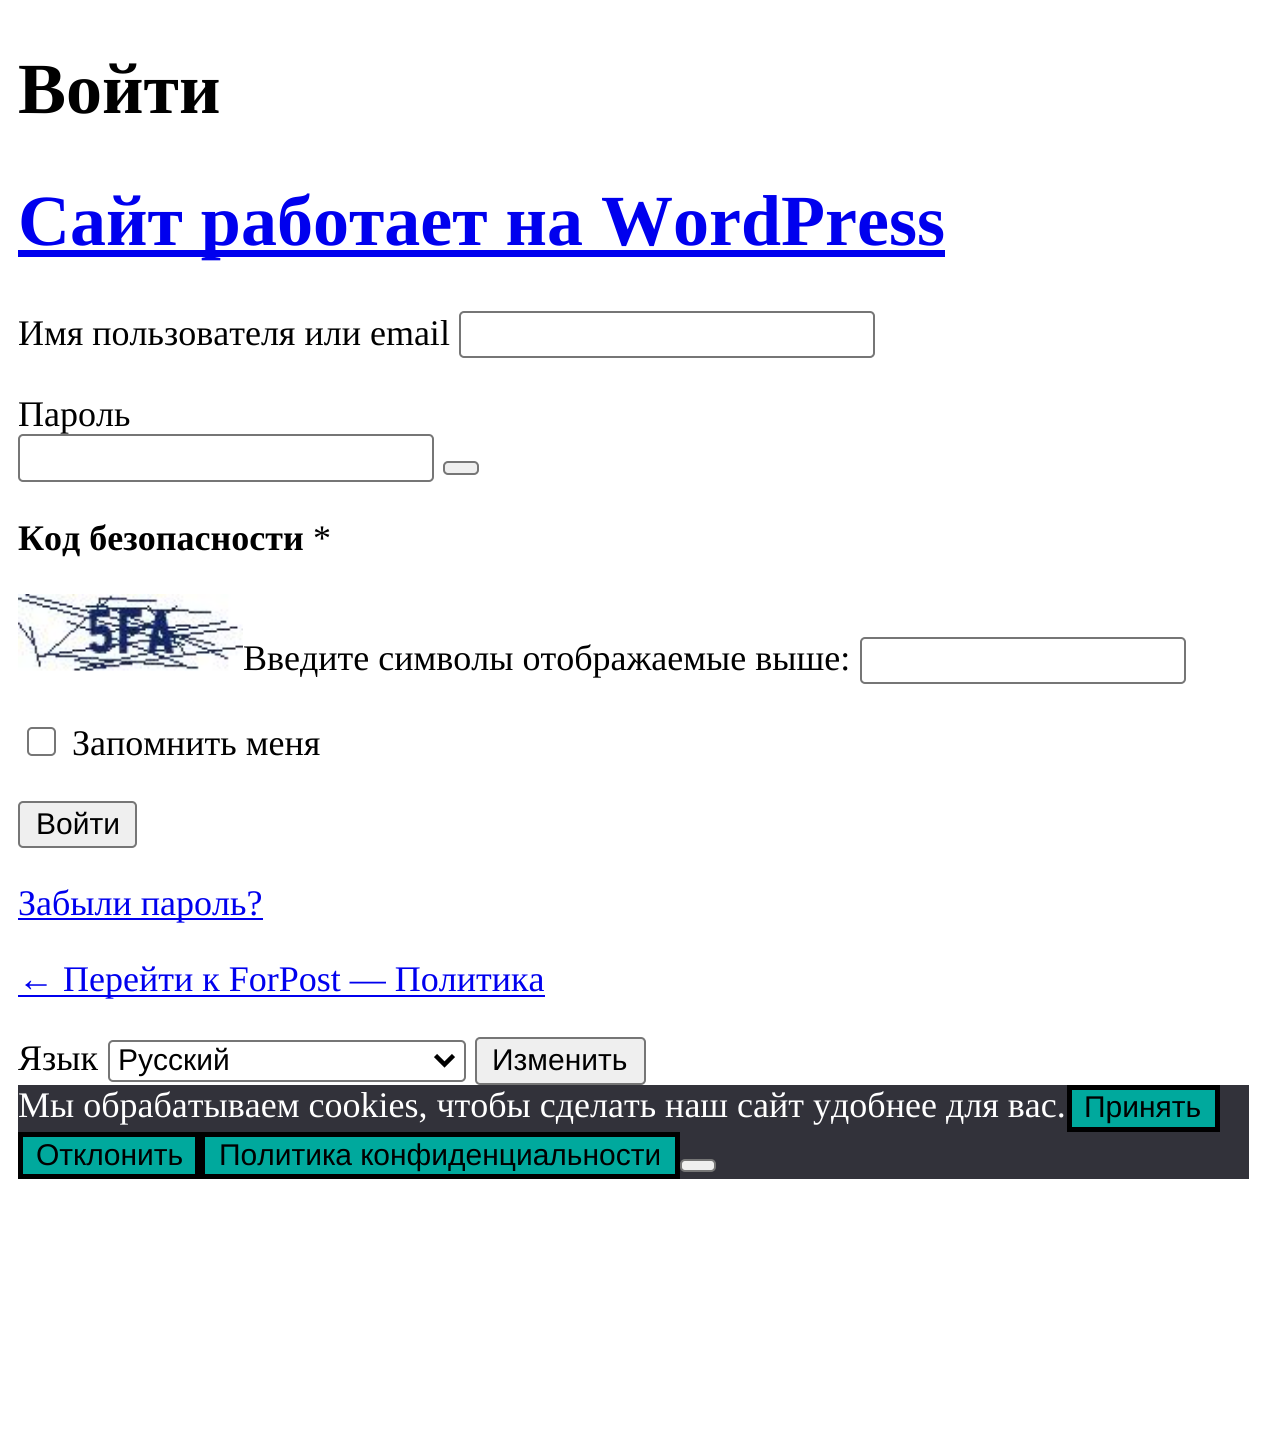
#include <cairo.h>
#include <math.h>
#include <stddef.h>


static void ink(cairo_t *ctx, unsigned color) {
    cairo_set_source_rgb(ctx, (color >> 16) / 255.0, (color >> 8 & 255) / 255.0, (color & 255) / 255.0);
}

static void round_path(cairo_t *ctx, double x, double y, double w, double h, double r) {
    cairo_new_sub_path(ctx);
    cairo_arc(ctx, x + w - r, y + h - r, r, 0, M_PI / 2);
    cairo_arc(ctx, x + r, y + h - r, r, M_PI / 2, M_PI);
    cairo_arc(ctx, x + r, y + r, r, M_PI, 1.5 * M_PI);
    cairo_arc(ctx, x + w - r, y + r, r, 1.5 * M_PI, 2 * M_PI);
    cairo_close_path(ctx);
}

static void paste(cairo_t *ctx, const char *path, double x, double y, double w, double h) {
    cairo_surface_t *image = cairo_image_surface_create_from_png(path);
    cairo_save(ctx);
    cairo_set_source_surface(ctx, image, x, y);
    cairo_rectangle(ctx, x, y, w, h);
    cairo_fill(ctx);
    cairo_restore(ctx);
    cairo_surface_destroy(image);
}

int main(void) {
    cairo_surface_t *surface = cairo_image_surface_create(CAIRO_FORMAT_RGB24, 1265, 1446);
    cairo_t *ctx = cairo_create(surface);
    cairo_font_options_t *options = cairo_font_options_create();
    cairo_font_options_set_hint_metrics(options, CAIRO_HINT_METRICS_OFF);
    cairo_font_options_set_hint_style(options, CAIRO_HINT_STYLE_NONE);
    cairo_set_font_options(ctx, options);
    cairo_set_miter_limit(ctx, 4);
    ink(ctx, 0xFFFFFF);
    cairo_paint(ctx);
    cairo_select_font_face(ctx, "Liberation Serif", CAIRO_FONT_SLANT_NORMAL, CAIRO_FONT_WEIGHT_BOLD);
    cairo_set_font_size(ctx, 72);
    ink(ctx, 0x000000);
    cairo_move_to(ctx, 18, 113);
    cairo_show_text(ctx, "Войти");
    ink(ctx, 0x0000EE);
    cairo_rectangle(ctx, 18, 250, 927, 7);
    cairo_fill(ctx);
    cairo_move_to(ctx, 18, 245);
    cairo_show_text(ctx, "Сайт работает на WordPress");
    cairo_select_font_face(ctx, "Liberation Serif", CAIRO_FONT_SLANT_NORMAL, CAIRO_FONT_WEIGHT_NORMAL);
    cairo_set_font_size(ctx, 36);
    ink(ctx, 0x000000);
    cairo_move_to(ctx, 18, 345);
    cairo_show_text(ctx, "Имя пользователя или email");
    round_path(ctx, 460, 312, 414, 45, 4);
    ink(ctx, 0x767676);
    cairo_stroke(ctx);
    ink(ctx, 0x000000);
    cairo_move_to(ctx, 18, 426);
    cairo_show_text(ctx, "Пароль");
    round_path(ctx, 19, 435, 414, 46, 4);
    ink(ctx, 0x767676);
    cairo_stroke(ctx);
    ink(ctx, 0xEFEFEF);
    round_path(ctx, 444, 462, 34, 12, 4);
    cairo_fill_preserve(ctx);
    ink(ctx, 0x767676);
    cairo_stroke(ctx);
    cairo_select_font_face(ctx, "Liberation Serif", CAIRO_FONT_SLANT_NORMAL, CAIRO_FONT_WEIGHT_BOLD);
    ink(ctx, 0x000000);
    cairo_move_to(ctx, 18, 550);
    cairo_show_text(ctx, "Код безопасности");
    cairo_select_font_face(ctx, "Liberation Serif", CAIRO_FONT_SLANT_NORMAL, CAIRO_FONT_WEIGHT_NORMAL);
    cairo_move_to(ctx, 313, 550);
    cairo_show_text(ctx, "*");
    paste(ctx, "media/1.png", 18, 594, 225, 77);
    cairo_move_to(ctx, 243, 670);
    cairo_show_text(ctx, "Введите символы отображаемые выше:");
    round_path(ctx, 861, 638, 324, 45, 4);
    ink(ctx, 0x767676);
    cairo_stroke(ctx);
    round_path(ctx, 28, 728, 27, 27, 4);
    cairo_stroke(ctx);
    ink(ctx, 0x000000);
    cairo_move_to(ctx, 72, 755);
    cairo_show_text(ctx, "Запомнить меня");
    ink(ctx, 0xEFEFEF);
    round_path(ctx, 19, 802, 117, 45, 4);
    cairo_fill_preserve(ctx);
    ink(ctx, 0x767676);
    cairo_stroke(ctx);
    cairo_select_font_face(ctx, "Liberation Sans", CAIRO_FONT_SLANT_NORMAL, CAIRO_FONT_WEIGHT_NORMAL);
    cairo_set_font_size(ctx, 30);
    ink(ctx, 0x000000);
    cairo_move_to(ctx, 36, 834);
    cairo_show_text(ctx, "Войти");
    ink(ctx, 0x0000EE);
    cairo_rectangle(ctx, 18, 918, 245, 2);
    cairo_fill(ctx);
    cairo_select_font_face(ctx, "Liberation Serif", CAIRO_FONT_SLANT_NORMAL, CAIRO_FONT_WEIGHT_NORMAL);
    cairo_set_font_size(ctx, 36);
    cairo_move_to(ctx, 18, 915);
    cairo_show_text(ctx, "Забыли пароль?");
    cairo_rectangle(ctx, 18, 995, 527, 2);
    cairo_fill(ctx);
    cairo_move_to(ctx, 18, 991);
    cairo_show_text(ctx, "← Перейти к ForPost — Политика");
    ink(ctx, 0x000000);
    cairo_move_to(ctx, 18, 1070);
    cairo_show_text(ctx, "Язык");
    round_path(ctx, 109, 1041, 356, 40, 4);
    ink(ctx, 0x767676);
    cairo_stroke(ctx);
    cairo_new_path(ctx);
    cairo_move_to(ctx, 435.5, 1055.5);
    cairo_line_to(ctx, 444.5, 1064.5);
    cairo_line_to(ctx, 453.5, 1055.5);
    ink(ctx, 0x000000);
    cairo_set_line_width(ctx, 4.5);
    cairo_stroke(ctx);
    cairo_select_font_face(ctx, "Liberation Sans", CAIRO_FONT_SLANT_NORMAL, CAIRO_FONT_WEIGHT_NORMAL);
    cairo_set_font_size(ctx, 30);
    cairo_move_to(ctx, 118, 1070);
    cairo_show_text(ctx, "Русский");
    ink(ctx, 0xEFEFEF);
    round_path(ctx, 476, 1038, 169, 46, 4);
    cairo_fill_preserve(ctx);
    ink(ctx, 0x767676);
    cairo_set_line_width(ctx, 2);
    cairo_stroke(ctx);
    ink(ctx, 0x000000);
    cairo_move_to(ctx, 492, 1070);
    cairo_show_text(ctx, "Изменить");
    ink(ctx, 0x32323A);
    cairo_rectangle(ctx, 18, 1085, 1231, 94);
    cairo_fill(ctx);
    cairo_select_font_face(ctx, "Liberation Serif", CAIRO_FONT_SLANT_NORMAL, CAIRO_FONT_WEIGHT_NORMAL);
    cairo_set_font_size(ctx, 36);
    ink(ctx, 0xFFFFFF);
    cairo_move_to(ctx, 18, 1117);
    cairo_show_text(ctx, "Мы обрабатываем cookies, чтобы сделать наш сайт удобнее для вас.");
    ink(ctx, 0x00A99D);
    cairo_rectangle(ctx, 1069.5, 1087.5, 148, 42);
    cairo_fill_preserve(ctx);
    ink(ctx, 0x000000);
    cairo_set_line_width(ctx, 5);
    cairo_stroke(ctx);
    cairo_select_font_face(ctx, "Liberation Sans", CAIRO_FONT_SLANT_NORMAL, CAIRO_FONT_WEIGHT_NORMAL);
    cairo_set_font_size(ctx, 30);
    cairo_move_to(ctx, 1084, 1117);
    cairo_show_text(ctx, "Принять");
    ink(ctx, 0x00A99D);
    cairo_rectangle(ctx, 20.5, 1134.5, 177, 42);
    cairo_fill_preserve(ctx);
    ink(ctx, 0x000000);
    cairo_stroke(ctx);
    cairo_move_to(ctx, 36, 1165);
    cairo_show_text(ctx, "Отклонить");
    ink(ctx, 0x00A99D);
    cairo_rectangle(ctx, 202.5, 1134.5, 475, 42);
    cairo_fill_preserve(ctx);
    ink(ctx, 0x000000);
    cairo_stroke(ctx);
    cairo_move_to(ctx, 219, 1165);
    cairo_show_text(ctx, "Политика конфиденциальности");
    ink(ctx, 0xEFEFEF);
    round_path(ctx, 681, 1160, 34, 11, 4);
    cairo_fill_preserve(ctx);
    ink(ctx, 0x767676);
    cairo_set_line_width(ctx, 2);
    cairo_stroke(ctx);
    cairo_surface_write_to_png(surface, "image.png");
    cairo_font_options_destroy(options);
    cairo_destroy(ctx);
    cairo_surface_destroy(surface);
    return 0;
}
